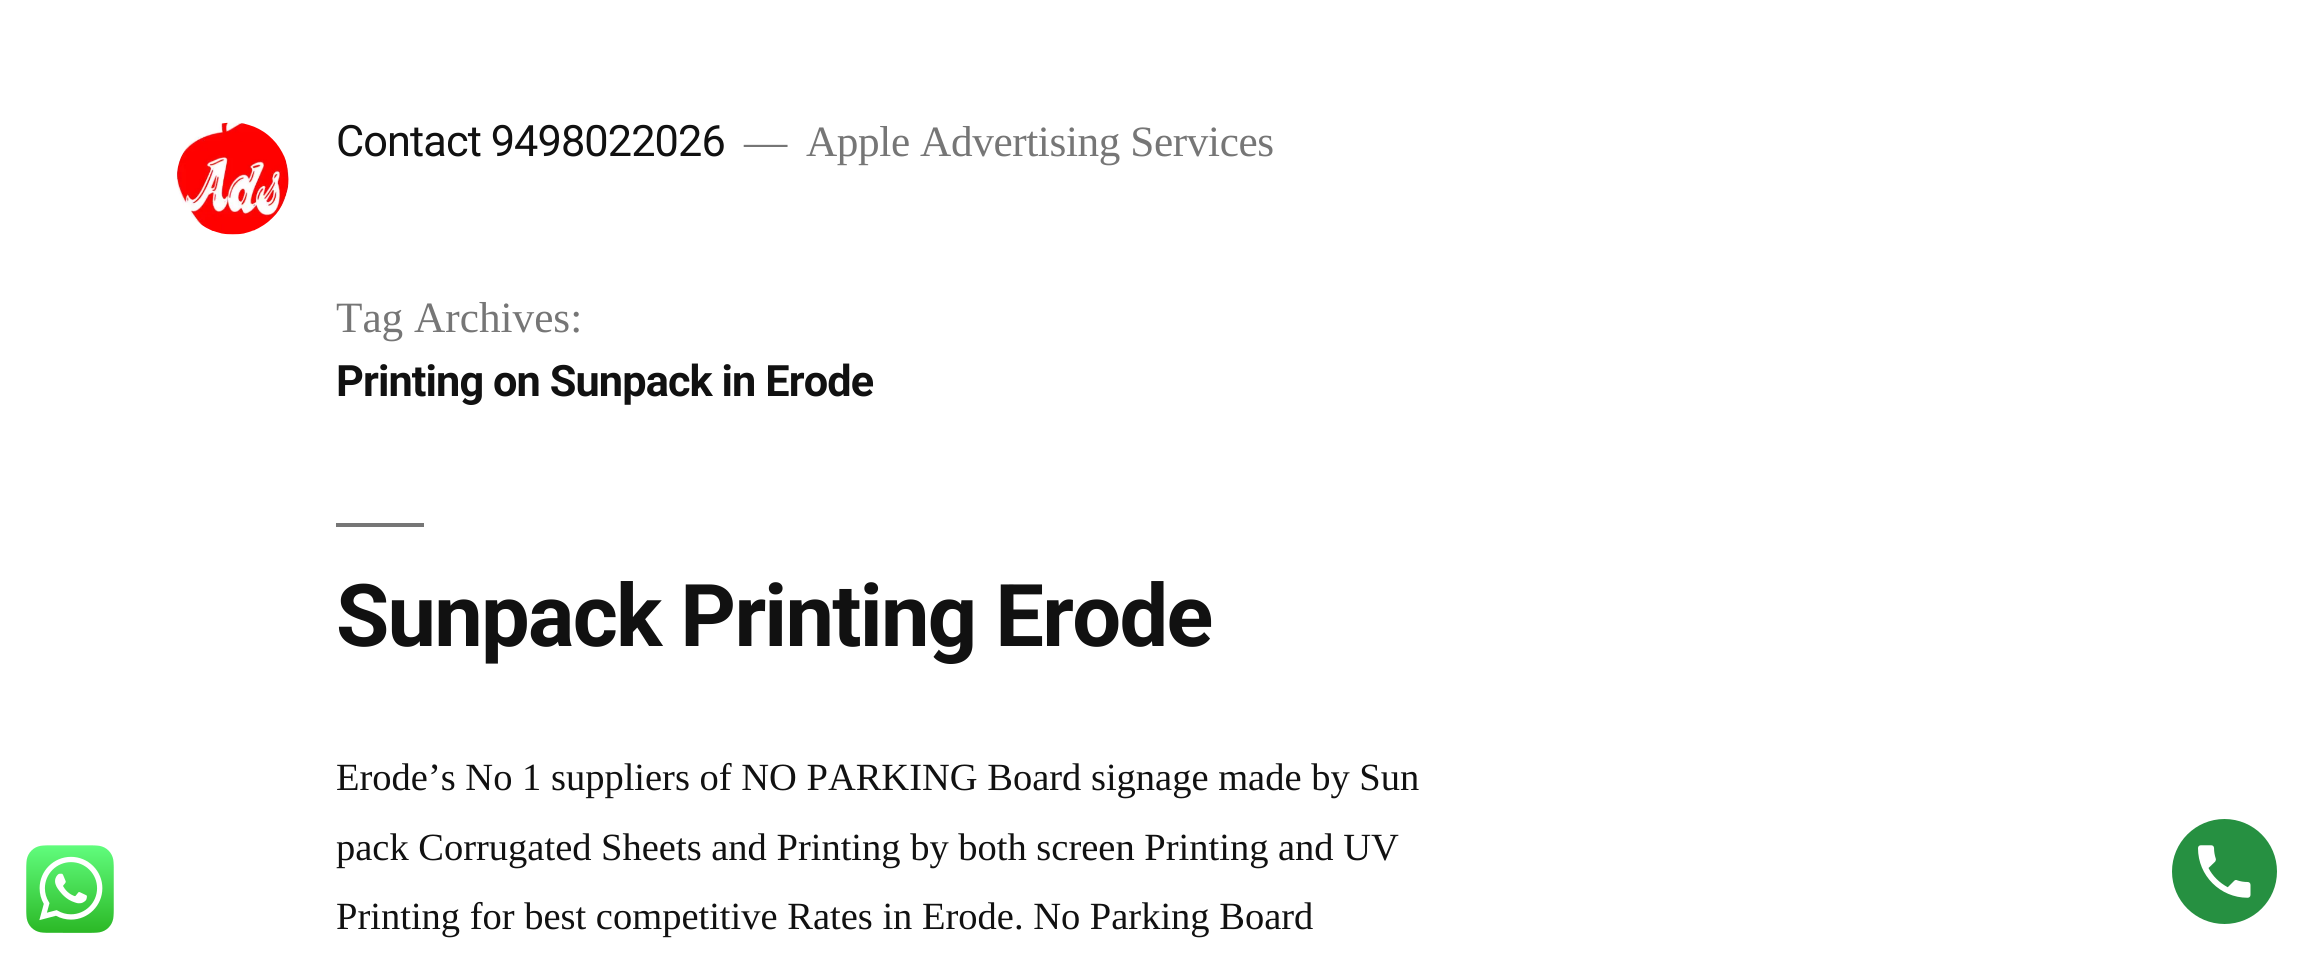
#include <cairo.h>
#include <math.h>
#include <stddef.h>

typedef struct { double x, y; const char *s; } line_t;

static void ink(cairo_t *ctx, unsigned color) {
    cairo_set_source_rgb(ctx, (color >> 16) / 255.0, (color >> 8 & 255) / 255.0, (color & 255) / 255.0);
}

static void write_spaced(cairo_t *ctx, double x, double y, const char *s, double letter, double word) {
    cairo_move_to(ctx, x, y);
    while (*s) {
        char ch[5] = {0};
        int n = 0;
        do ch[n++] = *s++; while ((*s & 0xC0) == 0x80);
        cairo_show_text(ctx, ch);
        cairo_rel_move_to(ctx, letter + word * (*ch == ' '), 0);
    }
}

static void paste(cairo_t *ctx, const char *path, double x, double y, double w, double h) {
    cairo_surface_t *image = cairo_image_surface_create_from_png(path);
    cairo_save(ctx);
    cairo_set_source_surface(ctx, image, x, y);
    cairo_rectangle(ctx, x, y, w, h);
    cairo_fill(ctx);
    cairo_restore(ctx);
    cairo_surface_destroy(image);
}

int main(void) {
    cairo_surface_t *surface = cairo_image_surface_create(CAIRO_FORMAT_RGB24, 2311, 959);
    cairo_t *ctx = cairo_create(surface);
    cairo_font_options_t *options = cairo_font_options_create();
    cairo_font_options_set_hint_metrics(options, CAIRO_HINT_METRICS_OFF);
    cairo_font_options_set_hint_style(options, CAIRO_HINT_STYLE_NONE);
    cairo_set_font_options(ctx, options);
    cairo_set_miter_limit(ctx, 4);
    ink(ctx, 0xFFFFFF);
    cairo_paint(ctx);
    paste(ctx, "media/1.png", 26, 845, 88, 88);
    paste(ctx, "media/2.png", 176, 122, 113, 113);
    cairo_select_font_face(ctx, "Roboto", CAIRO_FONT_SLANT_NORMAL, CAIRO_FONT_WEIGHT_NORMAL);
    cairo_set_font_size(ctx, 43.25);
    ink(ctx, 0x111111);
    write_spaced(ctx, 336, 156, "Contact 9498022026", -0.9, 0);
    cairo_select_font_face(ctx, "Liberation Serif", CAIRO_FONT_SLANT_NORMAL, CAIRO_FONT_WEIGHT_NORMAL);
    ink(ctx, 0x767676);
    write_spaced(ctx, 744, 156, "—", -0.4, 0);
    write_spaced(ctx, 806, 156, "Apple Advertising Services", -0.4, 0);
    cairo_move_to(ctx, 336, 332);
    cairo_show_text(ctx, "Tag Archives:");
    cairo_select_font_face(ctx, "Roboto", CAIRO_FONT_SLANT_NORMAL, CAIRO_FONT_WEIGHT_BOLD);
    ink(ctx, 0x111111);
    write_spaced(ctx, 336, 396, "Printing on Sunpack in Erode", -0.9, 0);
    ink(ctx, 0x767676);
    cairo_rectangle(ctx, 336, 523, 88, 4);
    cairo_fill(ctx);
    cairo_set_font_size(ctx, 86.6);
    ink(ctx, 0x111111);
    write_spaced(ctx, 336, 646, "Sunpack Printing Erode", -1.75, 0);
    cairo_select_font_face(ctx, "Liberation Serif", CAIRO_FONT_SLANT_NORMAL, CAIRO_FONT_WEIGHT_NORMAL);
    cairo_set_font_size(ctx, 38.5);
    {
        static const line_t items[] = {
            {336, 790, "Erode’s No 1 suppliers of NO PARKING Board signage made by Sun"},
            {336, 860, "pack Corrugated Sheets and Printing by both screen Printing and UV"},
            {336, 929, "Printing for best competitive Rates in Erode. No Parking Board"},
        };
        for (size_t i = 0; i < sizeof items / sizeof *items; i++) {
            cairo_move_to(ctx, items[i].x, items[i].y);
            cairo_show_text(ctx, items[i].s);
        }
    }
    ink(ctx, 0x269041);
    cairo_new_path(ctx);
    cairo_arc(ctx, 2224.5, 871.5, 52.5, 0, 2 * M_PI);
    cairo_fill(ctx);
    paste(ctx, "media/3.png", 2198, 845, 53, 53);
    cairo_surface_write_to_png(surface, "image.png");
    cairo_font_options_destroy(options);
    cairo_destroy(ctx);
    cairo_surface_destroy(surface);
    return 0;
}
